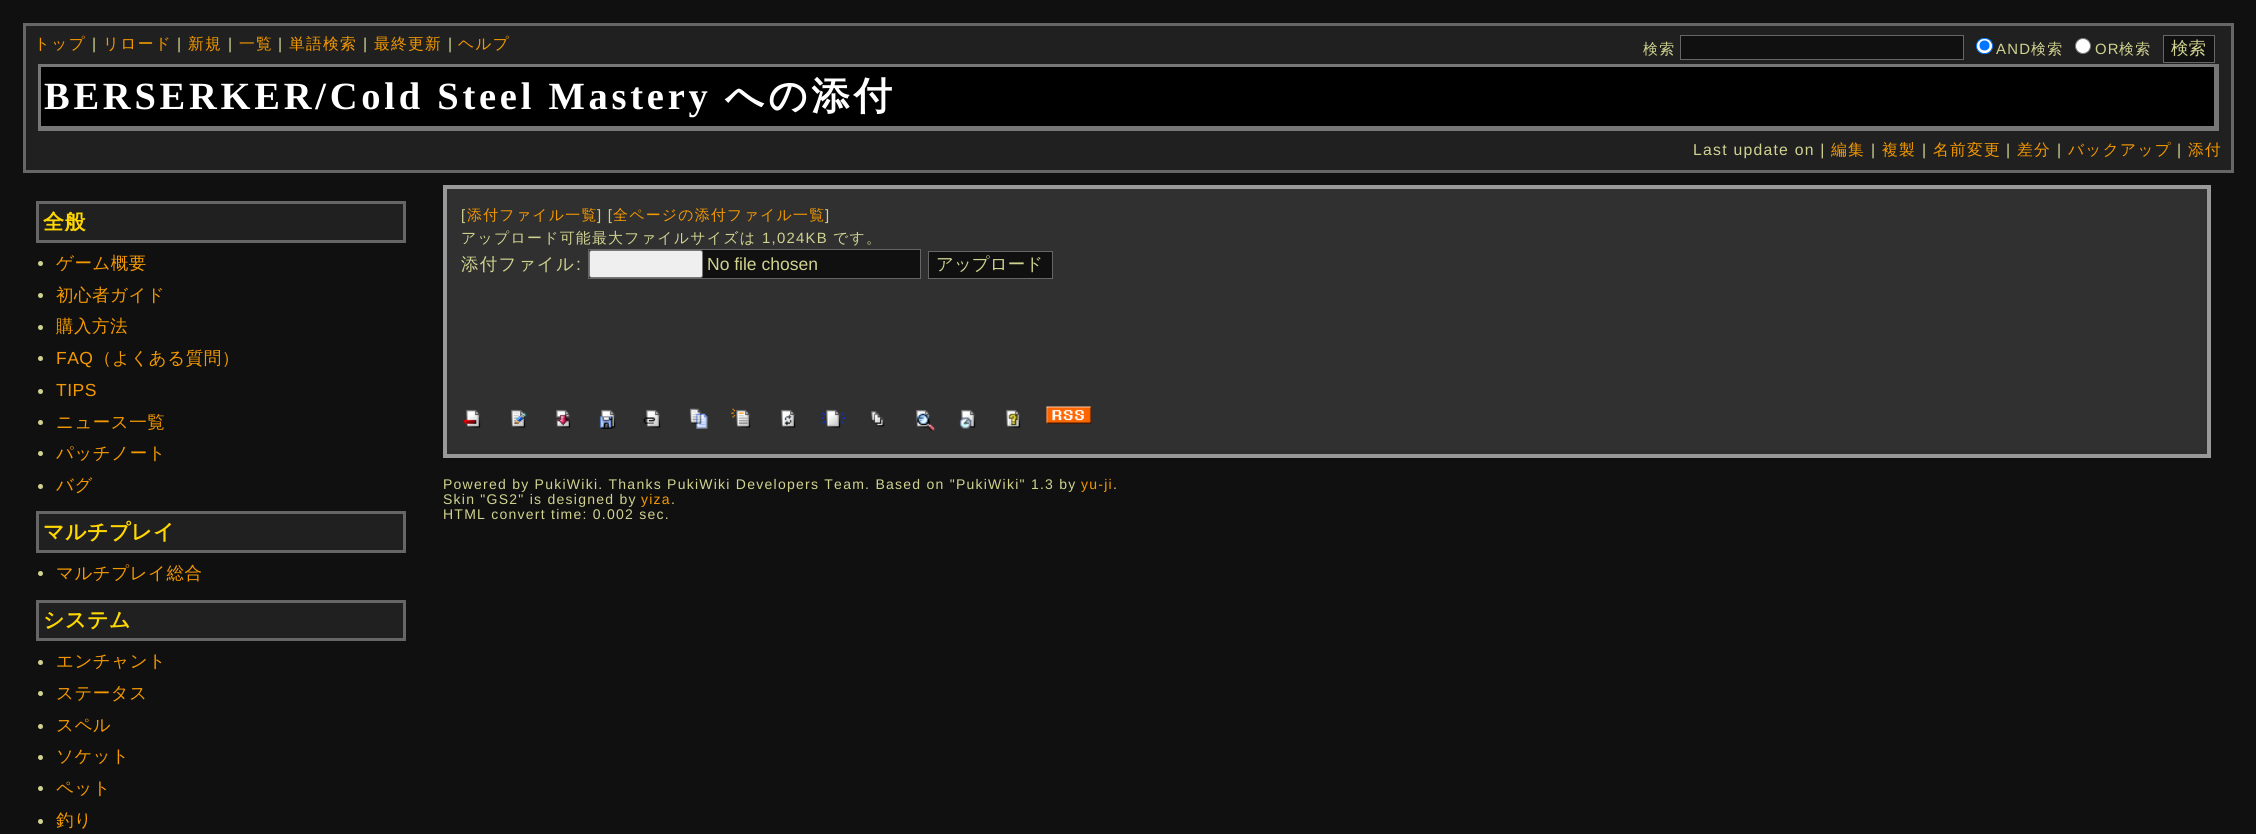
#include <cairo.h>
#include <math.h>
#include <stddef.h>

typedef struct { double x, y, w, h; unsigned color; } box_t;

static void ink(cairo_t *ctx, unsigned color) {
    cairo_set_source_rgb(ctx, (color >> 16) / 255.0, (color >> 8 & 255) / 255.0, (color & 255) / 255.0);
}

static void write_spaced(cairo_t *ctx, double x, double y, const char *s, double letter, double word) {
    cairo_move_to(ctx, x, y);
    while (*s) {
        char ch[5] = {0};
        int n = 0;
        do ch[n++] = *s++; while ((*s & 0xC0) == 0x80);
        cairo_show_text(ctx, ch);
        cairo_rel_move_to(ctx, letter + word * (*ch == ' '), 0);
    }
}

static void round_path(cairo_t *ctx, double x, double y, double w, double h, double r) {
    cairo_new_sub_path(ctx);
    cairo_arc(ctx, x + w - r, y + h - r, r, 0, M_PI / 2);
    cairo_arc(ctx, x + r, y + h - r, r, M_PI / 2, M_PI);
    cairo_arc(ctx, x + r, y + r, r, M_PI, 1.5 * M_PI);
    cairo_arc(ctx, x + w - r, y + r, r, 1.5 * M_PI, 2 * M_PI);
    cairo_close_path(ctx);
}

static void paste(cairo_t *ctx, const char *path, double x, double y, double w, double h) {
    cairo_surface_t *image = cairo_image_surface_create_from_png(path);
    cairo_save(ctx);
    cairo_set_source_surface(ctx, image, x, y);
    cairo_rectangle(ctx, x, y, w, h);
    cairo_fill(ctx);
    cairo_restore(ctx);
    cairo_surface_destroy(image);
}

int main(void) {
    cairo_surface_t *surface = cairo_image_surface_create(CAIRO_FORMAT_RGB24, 2256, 834);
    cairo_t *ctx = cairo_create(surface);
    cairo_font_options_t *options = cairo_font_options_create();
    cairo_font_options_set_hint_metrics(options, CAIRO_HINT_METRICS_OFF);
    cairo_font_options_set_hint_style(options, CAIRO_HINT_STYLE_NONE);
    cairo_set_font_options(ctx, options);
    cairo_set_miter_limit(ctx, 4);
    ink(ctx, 0x101010);
    cairo_paint(ctx);
    ink(ctx, 0x202020);
    cairo_rectangle(ctx, 24.5, 24.5, 2208, 147);
    cairo_fill_preserve(ctx);
    ink(ctx, 0x666666);
    cairo_set_line_width(ctx, 3);
    cairo_stroke(ctx);
    cairo_select_font_face(ctx, "WenQuanYi Zen Hei Medium", CAIRO_FONT_SLANT_NORMAL, CAIRO_FONT_WEIGHT_NORMAL);
    cairo_set_font_size(ctx, 15.75);
    ink(ctx, 0xF39800);
    write_spaced(ctx, 34, 49, "トップ", 1.25, 0);
    cairo_select_font_face(ctx, "Liberation Sans", CAIRO_FONT_SLANT_NORMAL, CAIRO_FONT_WEIGHT_NORMAL);
    ink(ctx, 0xD0D390);
    write_spaced(ctx, 92, 49, "|", 1.25, 0);
    cairo_select_font_face(ctx, "WenQuanYi Zen Hei Medium", CAIRO_FONT_SLANT_NORMAL, CAIRO_FONT_WEIGHT_NORMAL);
    ink(ctx, 0xF39800);
    write_spaced(ctx, 103, 49, "リロード", 1.25, 0);
    cairo_select_font_face(ctx, "Liberation Sans", CAIRO_FONT_SLANT_NORMAL, CAIRO_FONT_WEIGHT_NORMAL);
    ink(ctx, 0xD0D390);
    write_spaced(ctx, 177, 49, "|", 1.25, 0);
    cairo_select_font_face(ctx, "WenQuanYi Zen Hei Medium", CAIRO_FONT_SLANT_NORMAL, CAIRO_FONT_WEIGHT_NORMAL);
    ink(ctx, 0xF39800);
    write_spaced(ctx, 188, 49, "新規", 1.25, 0);
    cairo_select_font_face(ctx, "Liberation Sans", CAIRO_FONT_SLANT_NORMAL, CAIRO_FONT_WEIGHT_NORMAL);
    ink(ctx, 0xD0D390);
    write_spaced(ctx, 228, 49, "|", 1.25, 0);
    cairo_select_font_face(ctx, "WenQuanYi Zen Hei Medium", CAIRO_FONT_SLANT_NORMAL, CAIRO_FONT_WEIGHT_NORMAL);
    ink(ctx, 0xF39800);
    write_spaced(ctx, 239, 49, "一覧", 1.25, 0);
    cairo_select_font_face(ctx, "Liberation Sans", CAIRO_FONT_SLANT_NORMAL, CAIRO_FONT_WEIGHT_NORMAL);
    ink(ctx, 0xD0D390);
    write_spaced(ctx, 278, 49, "|", 1.25, 0);
    cairo_select_font_face(ctx, "WenQuanYi Zen Hei Medium", CAIRO_FONT_SLANT_NORMAL, CAIRO_FONT_WEIGHT_NORMAL);
    ink(ctx, 0xF39800);
    write_spaced(ctx, 289, 49, "単語検索", 1.25, 0);
    cairo_select_font_face(ctx, "Liberation Sans", CAIRO_FONT_SLANT_NORMAL, CAIRO_FONT_WEIGHT_NORMAL);
    ink(ctx, 0xD0D390);
    write_spaced(ctx, 363, 49, "|", 1.25, 0);
    cairo_select_font_face(ctx, "WenQuanYi Zen Hei Medium", CAIRO_FONT_SLANT_NORMAL, CAIRO_FONT_WEIGHT_NORMAL);
    ink(ctx, 0xF39800);
    write_spaced(ctx, 374, 49, "最終更新", 1.25, 0);
    cairo_select_font_face(ctx, "Liberation Sans", CAIRO_FONT_SLANT_NORMAL, CAIRO_FONT_WEIGHT_NORMAL);
    ink(ctx, 0xD0D390);
    write_spaced(ctx, 448, 49, "|", 1.25, 0);
    cairo_select_font_face(ctx, "WenQuanYi Zen Hei Medium", CAIRO_FONT_SLANT_NORMAL, CAIRO_FONT_WEIGHT_NORMAL);
    ink(ctx, 0xF39800);
    write_spaced(ctx, 458, 49, "ヘルプ", 1.25, 0);
    cairo_set_font_size(ctx, 14.9);
    ink(ctx, 0xD0D390);
    write_spaced(ctx, 1643, 54, "検索", 1.25, 0);
    ink(ctx, 0x101010);
    cairo_rectangle(ctx, 1680.5, 35.5, 283, 24);
    cairo_fill_preserve(ctx);
    ink(ctx, 0x666666);
    cairo_set_line_width(ctx, 1);
    cairo_stroke(ctx);
    ink(ctx, 0xFFFFFF);
    round_path(ctx, 1976.5, 38.5, 16, 15, 7.5);
    cairo_fill_preserve(ctx);
    ink(ctx, 0x0075FF);
    cairo_stroke(ctx);
    cairo_arc(ctx, 1984.5, 45.5, 5, 0, 2 * M_PI);
    cairo_fill(ctx);
    cairo_select_font_face(ctx, "Liberation Sans", CAIRO_FONT_SLANT_NORMAL, CAIRO_FONT_WEIGHT_NORMAL);
    ink(ctx, 0xD0D390);
    write_spaced(ctx, 1996, 54, "AND", 1.25, 0);
    cairo_select_font_face(ctx, "WenQuanYi Zen Hei Medium", CAIRO_FONT_SLANT_NORMAL, CAIRO_FONT_WEIGHT_NORMAL);
    write_spaced(ctx, 2031, 54, "検索", 1.25, 0);
    ink(ctx, 0xFFFFFF);
    cairo_new_path(ctx);
    cairo_arc(ctx, 2083, 46, 7.5, 0, 2 * M_PI);
    cairo_fill_preserve(ctx);
    ink(ctx, 0x767676);
    cairo_stroke(ctx);
    cairo_select_font_face(ctx, "Liberation Sans", CAIRO_FONT_SLANT_NORMAL, CAIRO_FONT_WEIGHT_NORMAL);
    ink(ctx, 0xD0D390);
    write_spaced(ctx, 2095, 54, "OR", 1.25, 0);
    cairo_select_font_face(ctx, "WenQuanYi Zen Hei Medium", CAIRO_FONT_SLANT_NORMAL, CAIRO_FONT_WEIGHT_NORMAL);
    write_spaced(ctx, 2119, 54, "検索", 1.25, 0);
    ink(ctx, 0x101010);
    cairo_rectangle(ctx, 2163.5, 35.5, 51, 27);
    cairo_fill_preserve(ctx);
    ink(ctx, 0x666666);
    cairo_stroke(ctx);
    cairo_set_font_size(ctx, 17.5);
    ink(ctx, 0xD0D390);
    cairo_move_to(ctx, 2171, 54);
    cairo_show_text(ctx, "検索");
    {
        static const box_t items[] = {
            {41, 67, 2173, 59, 0x000000},
            {38, 64, 2181, 3, 0x777777},
            {2214, 64, 5, 67, 0x777777},
            {38, 126, 2181, 5, 0x777777},
            {38, 64, 3, 67, 0x777777},
        };
        for (size_t i = 0; i < sizeof items / sizeof *items; i++) {
            ink(ctx, items[i].color);
            cairo_rectangle(ctx, items[i].x, items[i].y, items[i].w, items[i].h);
            cairo_fill(ctx);
        }
    }
    cairo_select_font_face(ctx, "Liberation Serif", CAIRO_FONT_SLANT_NORMAL, CAIRO_FONT_WEIGHT_BOLD);
    cairo_set_font_size(ctx, 38.5);
    ink(ctx, 0xFFFFFF);
    write_spaced(ctx, 44, 109, "BERSERKER/Cold Steel Mastery", 3.75, 0);
    cairo_select_font_face(ctx, "WenQuanYi Zen Hei", CAIRO_FONT_SLANT_NORMAL, CAIRO_FONT_WEIGHT_BOLD);
    write_spaced(ctx, 725, 109, "への添付", 3.75, 0);
    cairo_select_font_face(ctx, "Liberation Sans", CAIRO_FONT_SLANT_NORMAL, CAIRO_FONT_WEIGHT_NORMAL);
    cairo_set_font_size(ctx, 15.75);
    ink(ctx, 0xD0D390);
    write_spaced(ctx, 1693, 155, "Last update on |", 1.25, 0);
    cairo_select_font_face(ctx, "WenQuanYi Zen Hei Medium", CAIRO_FONT_SLANT_NORMAL, CAIRO_FONT_WEIGHT_NORMAL);
    ink(ctx, 0xF39800);
    write_spaced(ctx, 1831, 155, "編集", 1.25, 0);
    cairo_select_font_face(ctx, "Liberation Sans", CAIRO_FONT_SLANT_NORMAL, CAIRO_FONT_WEIGHT_NORMAL);
    ink(ctx, 0xD0D390);
    write_spaced(ctx, 1871, 155, "|", 1.25, 0);
    cairo_select_font_face(ctx, "WenQuanYi Zen Hei Medium", CAIRO_FONT_SLANT_NORMAL, CAIRO_FONT_WEIGHT_NORMAL);
    ink(ctx, 0xF39800);
    write_spaced(ctx, 1882, 155, "複製", 1.25, 0);
    cairo_select_font_face(ctx, "Liberation Sans", CAIRO_FONT_SLANT_NORMAL, CAIRO_FONT_WEIGHT_NORMAL);
    ink(ctx, 0xD0D390);
    write_spaced(ctx, 1922, 155, "|", 1.25, 0);
    cairo_select_font_face(ctx, "WenQuanYi Zen Hei Medium", CAIRO_FONT_SLANT_NORMAL, CAIRO_FONT_WEIGHT_NORMAL);
    ink(ctx, 0xF39800);
    write_spaced(ctx, 1933, 155, "名前変更", 1.25, 0);
    cairo_select_font_face(ctx, "Liberation Sans", CAIRO_FONT_SLANT_NORMAL, CAIRO_FONT_WEIGHT_NORMAL);
    ink(ctx, 0xD0D390);
    write_spaced(ctx, 2006, 155, "|", 1.25, 0);
    cairo_select_font_face(ctx, "WenQuanYi Zen Hei Medium", CAIRO_FONT_SLANT_NORMAL, CAIRO_FONT_WEIGHT_NORMAL);
    ink(ctx, 0xF39800);
    write_spaced(ctx, 2017, 155, "差分", 1.25, 0);
    cairo_select_font_face(ctx, "Liberation Sans", CAIRO_FONT_SLANT_NORMAL, CAIRO_FONT_WEIGHT_NORMAL);
    ink(ctx, 0xD0D390);
    write_spaced(ctx, 2057, 155, "|", 1.25, 0);
    cairo_select_font_face(ctx, "WenQuanYi Zen Hei Medium", CAIRO_FONT_SLANT_NORMAL, CAIRO_FONT_WEIGHT_NORMAL);
    ink(ctx, 0xF39800);
    write_spaced(ctx, 2068, 155, "バックアップ", 1.25, 0);
    cairo_select_font_face(ctx, "Liberation Sans", CAIRO_FONT_SLANT_NORMAL, CAIRO_FONT_WEIGHT_NORMAL);
    ink(ctx, 0xD0D390);
    write_spaced(ctx, 2177, 155, "|", 1.25, 0);
    cairo_select_font_face(ctx, "WenQuanYi Zen Hei Medium", CAIRO_FONT_SLANT_NORMAL, CAIRO_FONT_WEIGHT_NORMAL);
    ink(ctx, 0xF39800);
    write_spaced(ctx, 2188, 155, "添付", 1.25, 0);
    ink(ctx, 0x202020);
    cairo_rectangle(ctx, 37.5, 202.5, 367, 39);
    cairo_fill_preserve(ctx);
    ink(ctx, 0x666666);
    cairo_set_line_width(ctx, 3);
    cairo_stroke(ctx);
    cairo_select_font_face(ctx, "WenQuanYi Zen Hei", CAIRO_FONT_SLANT_NORMAL, CAIRO_FONT_WEIGHT_BOLD);
    cairo_set_font_size(ctx, 21);
    ink(ctx, 0xFFD700);
    write_spaced(ctx, 43, 229, "全般", 0.5, 0);
    ink(ctx, 0xD0D390);
    cairo_new_path(ctx);
    cairo_arc(ctx, 40.5, 263.5, 2.5, 0, 2 * M_PI);
    cairo_fill(ctx);
    cairo_select_font_face(ctx, "WenQuanYi Zen Hei Medium", CAIRO_FONT_SLANT_NORMAL, CAIRO_FONT_WEIGHT_NORMAL);
    cairo_set_font_size(ctx, 17.5);
    ink(ctx, 0xF39800);
    write_spaced(ctx, 56, 269, "ゲーム概要", 0.5, 0);
    ink(ctx, 0xD0D390);
    cairo_new_path(ctx);
    cairo_arc(ctx, 40.5, 295.5, 2.5, 0, 2 * M_PI);
    cairo_fill(ctx);
    ink(ctx, 0xF39800);
    write_spaced(ctx, 56, 301, "初心者ガイド", 0.5, 0);
    ink(ctx, 0xD0D390);
    cairo_new_path(ctx);
    cairo_arc(ctx, 40.5, 327.5, 2.5, 0, 2 * M_PI);
    cairo_fill(ctx);
    ink(ctx, 0xF39800);
    write_spaced(ctx, 56, 332, "購入方法", 0.5, 0);
    ink(ctx, 0xD0D390);
    cairo_new_path(ctx);
    cairo_arc(ctx, 40.5, 358.5, 2.5, 0, 2 * M_PI);
    cairo_fill(ctx);
    cairo_select_font_face(ctx, "Liberation Sans", CAIRO_FONT_SLANT_NORMAL, CAIRO_FONT_WEIGHT_NORMAL);
    ink(ctx, 0xF39800);
    write_spaced(ctx, 56, 364, "FAQ", 0.5, 0);
    cairo_select_font_face(ctx, "WenQuanYi Zen Hei Medium", CAIRO_FONT_SLANT_NORMAL, CAIRO_FONT_WEIGHT_NORMAL);
    write_spaced(ctx, 94, 364, "（よくある質問）", 0.5, 0);
    ink(ctx, 0xD0D390);
    cairo_new_path(ctx);
    cairo_arc(ctx, 40.5, 391.5, 2.5, 0, 2 * M_PI);
    cairo_fill(ctx);
    cairo_select_font_face(ctx, "Liberation Sans", CAIRO_FONT_SLANT_NORMAL, CAIRO_FONT_WEIGHT_NORMAL);
    ink(ctx, 0xF39800);
    write_spaced(ctx, 56, 396, "TIPS", 0.5, 0);
    ink(ctx, 0xD0D390);
    cairo_new_path(ctx);
    cairo_arc(ctx, 40.5, 422.5, 2.5, 0, 2 * M_PI);
    cairo_fill(ctx);
    cairo_select_font_face(ctx, "WenQuanYi Zen Hei Medium", CAIRO_FONT_SLANT_NORMAL, CAIRO_FONT_WEIGHT_NORMAL);
    ink(ctx, 0xF39800);
    write_spaced(ctx, 56, 428, "ニュース一覧", 0.5, 0);
    ink(ctx, 0xD0D390);
    cairo_new_path(ctx);
    cairo_arc(ctx, 40.5, 453.5, 2.5, 0, 2 * M_PI);
    cairo_fill(ctx);
    ink(ctx, 0xF39800);
    write_spaced(ctx, 56, 459, "パッチノート", 0.5, 0);
    ink(ctx, 0xD0D390);
    cairo_new_path(ctx);
    cairo_arc(ctx, 40.5, 486.5, 2.5, 0, 2 * M_PI);
    cairo_fill(ctx);
    ink(ctx, 0xF39800);
    write_spaced(ctx, 56, 491, "バグ", 0.5, 0);
    ink(ctx, 0x202020);
    cairo_rectangle(ctx, 37.5, 512.5, 367, 39);
    cairo_fill_preserve(ctx);
    ink(ctx, 0x666666);
    cairo_stroke(ctx);
    cairo_select_font_face(ctx, "WenQuanYi Zen Hei", CAIRO_FONT_SLANT_NORMAL, CAIRO_FONT_WEIGHT_BOLD);
    cairo_set_font_size(ctx, 21);
    ink(ctx, 0xFFD700);
    write_spaced(ctx, 43, 539, "マルチプレイ", 0.5, 0);
    ink(ctx, 0xD0D390);
    cairo_new_path(ctx);
    cairo_arc(ctx, 40.5, 573.5, 2.5, 0, 2 * M_PI);
    cairo_fill(ctx);
    cairo_select_font_face(ctx, "WenQuanYi Zen Hei Medium", CAIRO_FONT_SLANT_NORMAL, CAIRO_FONT_WEIGHT_NORMAL);
    cairo_set_font_size(ctx, 17.5);
    ink(ctx, 0xF39800);
    write_spaced(ctx, 56, 579, "マルチプレイ総合", 0.5, 0);
    ink(ctx, 0x202020);
    cairo_rectangle(ctx, 37.5, 601.5, 367, 38);
    cairo_fill_preserve(ctx);
    ink(ctx, 0x666666);
    cairo_stroke(ctx);
    cairo_select_font_face(ctx, "WenQuanYi Zen Hei", CAIRO_FONT_SLANT_NORMAL, CAIRO_FONT_WEIGHT_BOLD);
    cairo_set_font_size(ctx, 21);
    ink(ctx, 0xFFD700);
    write_spaced(ctx, 43, 627, "システム", 0.5, 0);
    ink(ctx, 0xD0D390);
    cairo_new_path(ctx);
    cairo_arc(ctx, 40.5, 662.5, 2.5, 0, 2 * M_PI);
    cairo_fill(ctx);
    cairo_select_font_face(ctx, "WenQuanYi Zen Hei Medium", CAIRO_FONT_SLANT_NORMAL, CAIRO_FONT_WEIGHT_NORMAL);
    cairo_set_font_size(ctx, 17.5);
    ink(ctx, 0xF39800);
    write_spaced(ctx, 56, 667, "エンチャント", 0.5, 0);
    ink(ctx, 0xD0D390);
    cairo_new_path(ctx);
    cairo_arc(ctx, 40.5, 693.5, 2.5, 0, 2 * M_PI);
    cairo_fill(ctx);
    ink(ctx, 0xF39800);
    write_spaced(ctx, 56, 699, "ステータス", 0.5, 0);
    ink(ctx, 0xD0D390);
    cairo_new_path(ctx);
    cairo_arc(ctx, 40.5, 726.5, 2.5, 0, 2 * M_PI);
    cairo_fill(ctx);
    ink(ctx, 0xF39800);
    write_spaced(ctx, 56, 731, "スペル", 0.5, 0);
    ink(ctx, 0xD0D390);
    cairo_new_path(ctx);
    cairo_arc(ctx, 40.5, 757.5, 2.5, 0, 2 * M_PI);
    cairo_fill(ctx);
    ink(ctx, 0xF39800);
    write_spaced(ctx, 56, 762, "ソケット", 0.5, 0);
    ink(ctx, 0xD0D390);
    cairo_new_path(ctx);
    cairo_arc(ctx, 40.5, 788.5, 2.5, 0, 2 * M_PI);
    cairo_fill(ctx);
    ink(ctx, 0xF39800);
    write_spaced(ctx, 56, 794, "ペット", 0.5, 0);
    ink(ctx, 0xD0D390);
    cairo_new_path(ctx);
    cairo_arc(ctx, 40.5, 821.5, 2.5, 0, 2 * M_PI);
    cairo_fill(ctx);
    ink(ctx, 0xF39800);
    write_spaced(ctx, 56, 826, "釣り", 0.5, 0);
    ink(ctx, 0x303030);
    cairo_rectangle(ctx, 445, 187, 1764, 269);
    cairo_fill_preserve(ctx);
    ink(ctx, 0x999999);
    cairo_set_line_width(ctx, 4);
    cairo_stroke(ctx);
    cairo_select_font_face(ctx, "Liberation Sans", CAIRO_FONT_SLANT_NORMAL, CAIRO_FONT_WEIGHT_NORMAL);
    cairo_set_font_size(ctx, 14.9);
    ink(ctx, 0xD0D390);
    write_spaced(ctx, 461, 220, "[", 1.25, 0);
    cairo_select_font_face(ctx, "WenQuanYi Zen Hei Medium", CAIRO_FONT_SLANT_NORMAL, CAIRO_FONT_WEIGHT_NORMAL);
    ink(ctx, 0xF39800);
    write_spaced(ctx, 467, 220, "添付ファイル一覧", 1.25, 0);
    cairo_select_font_face(ctx, "Liberation Sans", CAIRO_FONT_SLANT_NORMAL, CAIRO_FONT_WEIGHT_NORMAL);
    ink(ctx, 0xD0D390);
    write_spaced(ctx, 597, 220, "] [", 1.25, 0);
    cairo_select_font_face(ctx, "WenQuanYi Zen Hei Medium", CAIRO_FONT_SLANT_NORMAL, CAIRO_FONT_WEIGHT_NORMAL);
    ink(ctx, 0xF39800);
    write_spaced(ctx, 613, 220, "全ページの添付ファイル一覧", 1.25, 0);
    cairo_select_font_face(ctx, "Liberation Sans", CAIRO_FONT_SLANT_NORMAL, CAIRO_FONT_WEIGHT_NORMAL);
    ink(ctx, 0xD0D390);
    write_spaced(ctx, 825, 220, "]", 1.25, 0);
    cairo_select_font_face(ctx, "WenQuanYi Zen Hei Medium", CAIRO_FONT_SLANT_NORMAL, CAIRO_FONT_WEIGHT_NORMAL);
    write_spaced(ctx, 461, 243, "アップロード可能最大ファイルサイズは", 1.25, 0);
    cairo_select_font_face(ctx, "Liberation Sans", CAIRO_FONT_SLANT_NORMAL, CAIRO_FONT_WEIGHT_NORMAL);
    write_spaced(ctx, 762, 243, "1,024KB", 1.25, 0);
    cairo_select_font_face(ctx, "WenQuanYi Zen Hei Medium", CAIRO_FONT_SLANT_NORMAL, CAIRO_FONT_WEIGHT_NORMAL);
    write_spaced(ctx, 833, 243, "です。", 1.25, 0);
    cairo_set_font_size(ctx, 17.5);
    write_spaced(ctx, 461, 270, "添付ファイル", 1.25, 0);
    cairo_select_font_face(ctx, "Liberation Sans", CAIRO_FONT_SLANT_NORMAL, CAIRO_FONT_WEIGHT_NORMAL);
    write_spaced(ctx, 576, 270, ":", 1.25, 0);
    ink(ctx, 0x101010);
    cairo_rectangle(ctx, 588.5, 249.5, 332, 29);
    cairo_fill_preserve(ctx);
    ink(ctx, 0x666666);
    cairo_set_line_width(ctx, 1);
    cairo_stroke(ctx);
    ink(ctx, 0xEFEFEF);
    round_path(ctx, 589.5, 250.5, 113, 27, 2);
    cairo_fill_preserve(ctx);
    ink(ctx, 0x767676);
    cairo_stroke(ctx);
    ink(ctx, 0xD0D390);
    cairo_move_to(ctx, 707, 270);
    cairo_show_text(ctx, "No file chosen");
    ink(ctx, 0x101010);
    cairo_rectangle(ctx, 928.5, 251.5, 124, 27);
    cairo_fill_preserve(ctx);
    ink(ctx, 0x666666);
    cairo_stroke(ctx);
    cairo_select_font_face(ctx, "WenQuanYi Zen Hei Medium", CAIRO_FONT_SLANT_NORMAL, CAIRO_FONT_WEIGHT_NORMAL);
    ink(ctx, 0xD0D390);
    cairo_move_to(ctx, 936, 270);
    cairo_show_text(ctx, "アップロード");
    paste(ctx, "media/1.png", 463, 409, 18, 19);
    paste(ctx, "media/2.png", 511, 409, 16, 19);
    paste(ctx, "media/3.png", 556, 409, 15, 19);
    paste(ctx, "media/4.png", 599, 409, 17, 20);
    paste(ctx, "media/5.png", 643, 409, 18, 19);
    paste(ctx, "media/6.png", 689, 408, 19, 21);
    paste(ctx, "media/7.png", 731, 408, 20, 20);
    paste(ctx, "media/8.png", 781, 409, 15, 19);
    paste(ctx, "media/9.png", 821, 409, 25, 19);
    paste(ctx, "media/10.png", 871, 411, 13, 16);
    paste(ctx, "media/11.png", 916, 409, 20, 22);
    paste(ctx, "media/12.png", 959, 409, 17, 20);
    paste(ctx, "media/13.png", 1006, 409, 15, 19);
    paste(ctx, "media/14.png", 1046, 406, 46, 18);
    cairo_select_font_face(ctx, "Liberation Sans", CAIRO_FONT_SLANT_NORMAL, CAIRO_FONT_WEIGHT_NORMAL);
    cairo_set_font_size(ctx, 14);
    write_spaced(ctx, 443, 489, "Powered by PukiWiki. Thanks PukiWiki Developers Team. Based on \"PukiWiki\" 1.3 by", 1.25, 0);
    ink(ctx, 0xF39800);
    write_spaced(ctx, 1081, 489, "yu-ji", 1.25, 0);
    ink(ctx, 0xD0D390);
    write_spaced(ctx, 1113, 489, ".", 1.25, 0);
    write_spaced(ctx, 443, 504, "Skin \"GS2\" is designed by", 1.25, 0);
    ink(ctx, 0xF39800);
    write_spaced(ctx, 641, 504, "yiza", 1.25, 0);
    ink(ctx, 0xD0D390);
    write_spaced(ctx, 671, 504, ".", 1.25, 0);
    write_spaced(ctx, 443, 519, "HTML convert time: 0.002 sec.", 1.25, 0);
    cairo_surface_write_to_png(surface, "image.png");
    cairo_font_options_destroy(options);
    cairo_destroy(ctx);
    cairo_surface_destroy(surface);
    return 0;
}
